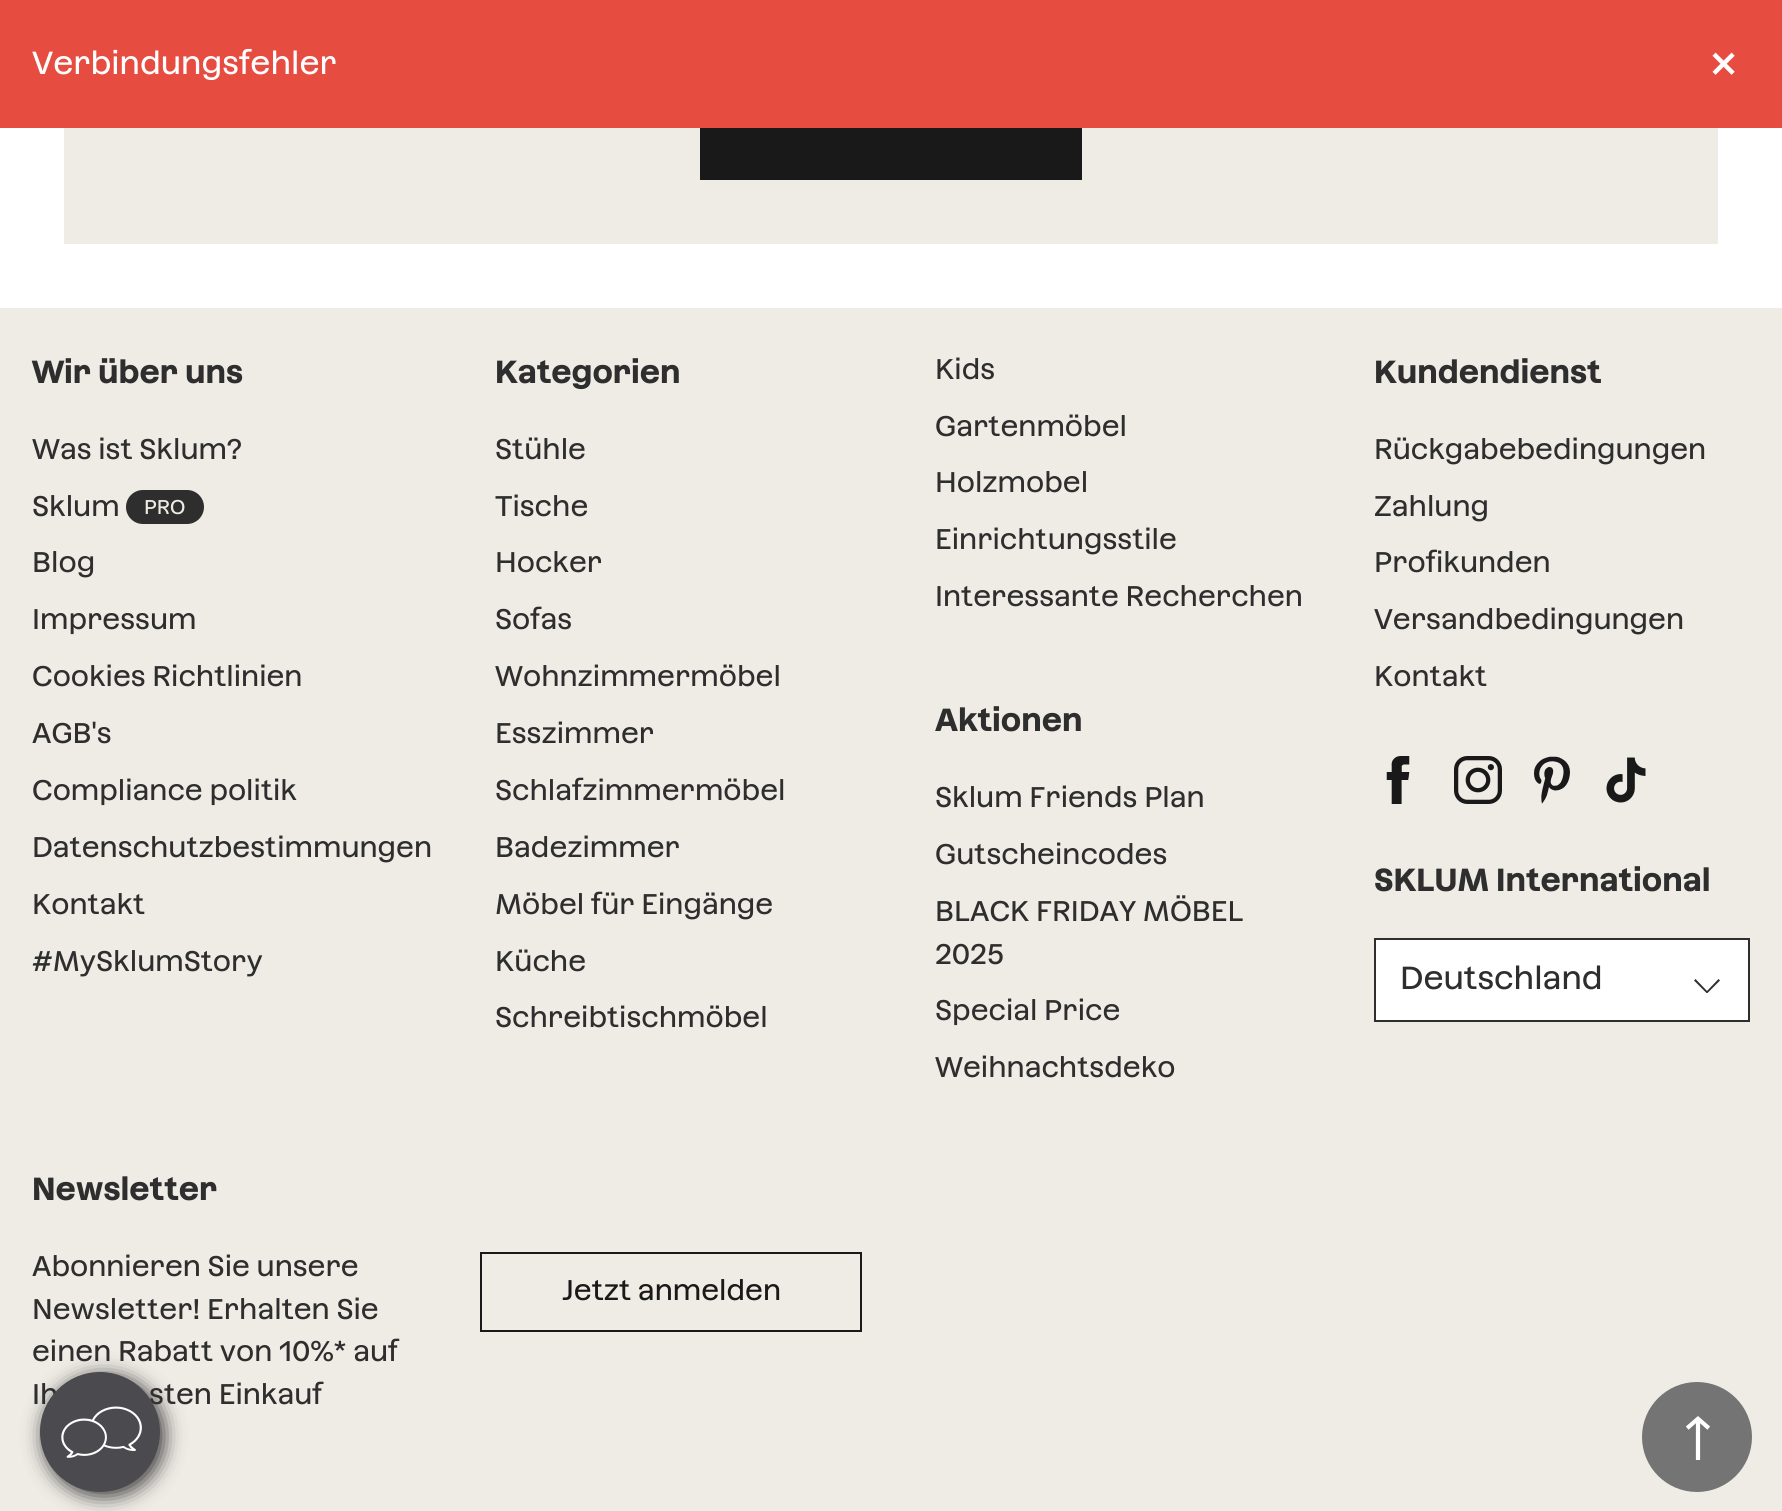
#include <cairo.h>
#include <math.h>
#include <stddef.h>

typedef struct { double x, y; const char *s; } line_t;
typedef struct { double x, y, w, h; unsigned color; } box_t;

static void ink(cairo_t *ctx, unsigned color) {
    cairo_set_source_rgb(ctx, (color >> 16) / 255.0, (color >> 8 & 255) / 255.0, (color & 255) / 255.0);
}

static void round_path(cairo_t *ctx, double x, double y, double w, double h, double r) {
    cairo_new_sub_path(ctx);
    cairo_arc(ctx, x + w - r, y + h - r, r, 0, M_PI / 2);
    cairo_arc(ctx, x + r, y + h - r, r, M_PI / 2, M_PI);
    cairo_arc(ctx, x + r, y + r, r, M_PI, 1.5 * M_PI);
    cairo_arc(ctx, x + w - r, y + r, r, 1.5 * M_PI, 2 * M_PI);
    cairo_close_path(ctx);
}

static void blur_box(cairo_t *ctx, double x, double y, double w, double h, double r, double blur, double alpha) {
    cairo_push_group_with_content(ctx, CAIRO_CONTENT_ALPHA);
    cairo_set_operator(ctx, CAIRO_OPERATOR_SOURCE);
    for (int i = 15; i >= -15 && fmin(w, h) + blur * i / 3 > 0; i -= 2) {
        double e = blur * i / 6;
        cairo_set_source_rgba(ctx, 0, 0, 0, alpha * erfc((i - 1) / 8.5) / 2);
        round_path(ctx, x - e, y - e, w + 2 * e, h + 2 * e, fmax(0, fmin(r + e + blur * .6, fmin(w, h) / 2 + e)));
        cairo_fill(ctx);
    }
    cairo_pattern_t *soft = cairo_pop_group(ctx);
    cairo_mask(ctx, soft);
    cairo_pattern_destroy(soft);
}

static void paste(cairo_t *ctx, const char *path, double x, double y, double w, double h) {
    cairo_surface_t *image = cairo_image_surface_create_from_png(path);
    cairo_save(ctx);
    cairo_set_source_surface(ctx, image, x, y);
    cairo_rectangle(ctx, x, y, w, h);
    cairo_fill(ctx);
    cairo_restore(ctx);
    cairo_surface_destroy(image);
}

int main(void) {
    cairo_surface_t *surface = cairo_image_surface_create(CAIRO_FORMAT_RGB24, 1782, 1511);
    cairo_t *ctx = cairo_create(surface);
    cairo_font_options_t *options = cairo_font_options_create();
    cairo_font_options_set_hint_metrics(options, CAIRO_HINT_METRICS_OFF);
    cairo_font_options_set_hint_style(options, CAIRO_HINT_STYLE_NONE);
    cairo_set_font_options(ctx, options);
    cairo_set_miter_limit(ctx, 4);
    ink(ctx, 0xFFFFFF);
    cairo_paint(ctx);
    ink(ctx, 0xE74C40);
    cairo_rectangle(ctx, 0, 0, 1782, 128);
    cairo_fill(ctx);
    cairo_select_font_face(ctx, "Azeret", CAIRO_FONT_SLANT_NORMAL, CAIRO_FONT_WEIGHT_NORMAL);
    cairo_set_font_size(ctx, 32);
    ink(ctx, 0xFFFFFF);
    cairo_move_to(ctx, 32, 74);
    cairo_show_text(ctx, "Verbindungsfehler");
    cairo_set_font_size(ctx, 50);
    cairo_move_to(ctx, 1709, 79);
    cairo_show_text(ctx, "×");
    {
        static const box_t items[] = {
            {64, 128, 1654, 116, 0xEFECE6},
            {700, 128, 382, 52, 0x191919},
            {0, 308, 1782, 1203, 0xEFECE6},
        };
        for (size_t i = 0; i < sizeof items / sizeof *items; i++) {
            ink(ctx, items[i].color);
            cairo_rectangle(ctx, items[i].x, items[i].y, items[i].w, items[i].h);
            cairo_fill(ctx);
        }
    }
    cairo_select_font_face(ctx, "Azeret", CAIRO_FONT_SLANT_NORMAL, CAIRO_FONT_WEIGHT_BOLD);
    cairo_set_font_size(ctx, 32);
    ink(ctx, 0x2E2E2E);
    cairo_move_to(ctx, 32, 383);
    cairo_show_text(ctx, "Wir über uns");
    cairo_select_font_face(ctx, "Azeret", CAIRO_FONT_SLANT_NORMAL, CAIRO_FONT_WEIGHT_NORMAL);
    cairo_set_font_size(ctx, 28.5);
    cairo_move_to(ctx, 32, 459);
    cairo_show_text(ctx, "Was ist Sklum?");
    cairo_move_to(ctx, 32, 516);
    cairo_show_text(ctx, "Sklum");
    round_path(ctx, 126, 490, 78, 34, 17);
    cairo_fill(ctx);
    cairo_set_font_size(ctx, 20);
    ink(ctx, 0xEFECE6);
    cairo_move_to(ctx, 144, 514);
    cairo_show_text(ctx, "PRO");
    cairo_set_font_size(ctx, 28.5);
    ink(ctx, 0x2E2E2E);
    {
        static const line_t items[] = {
            {32, 572, "Blog"},
            {32, 629, "Impressum"},
            {32, 686, "Cookies Richtlinien"},
            {32, 743, "AGB's"},
            {32, 800, "Compliance politik"},
            {32, 857, "Datenschutzbestimmungen"},
            {32, 914, "Kontakt"},
            {32, 971, "#MySklumStory"},
        };
        for (size_t i = 0; i < sizeof items / sizeof *items; i++) {
            cairo_move_to(ctx, items[i].x, items[i].y);
            cairo_show_text(ctx, items[i].s);
        }
    }
    cairo_select_font_face(ctx, "Azeret", CAIRO_FONT_SLANT_NORMAL, CAIRO_FONT_WEIGHT_BOLD);
    cairo_set_font_size(ctx, 32);
    cairo_move_to(ctx, 495, 383);
    cairo_show_text(ctx, "Kategorien");
    cairo_select_font_face(ctx, "Azeret", CAIRO_FONT_SLANT_NORMAL, CAIRO_FONT_WEIGHT_NORMAL);
    cairo_set_font_size(ctx, 28.5);
    {
        static const line_t items[] = {
            {495, 459, "Stühle"},
            {495, 516, "Tische"},
            {495, 572, "Hocker"},
            {495, 629, "Sofas"},
            {495, 686, "Wohnzimmermöbel"},
            {495, 743, "Esszimmer"},
            {495, 800, "Schlafzimmermöbel"},
            {495, 857, "Badezimmer"},
            {495, 914, "Möbel für Eingänge"},
            {495, 971, "Küche"},
            {495, 1027, "Schreibtischmöbel"},
            {935, 379, "Kids"},
            {935, 436, "Gartenmöbel"},
            {935, 492, "Holzmobel"},
            {935, 549, "Einrichtungsstile"},
            {935, 606, "Interessante Recherchen"},
        };
        for (size_t i = 0; i < sizeof items / sizeof *items; i++) {
            cairo_move_to(ctx, items[i].x, items[i].y);
            cairo_show_text(ctx, items[i].s);
        }
    }
    cairo_select_font_face(ctx, "Azeret", CAIRO_FONT_SLANT_NORMAL, CAIRO_FONT_WEIGHT_BOLD);
    cairo_set_font_size(ctx, 32);
    cairo_move_to(ctx, 935, 731);
    cairo_show_text(ctx, "Aktionen");
    cairo_select_font_face(ctx, "Azeret", CAIRO_FONT_SLANT_NORMAL, CAIRO_FONT_WEIGHT_NORMAL);
    cairo_set_font_size(ctx, 28.5);
    {
        static const line_t items[] = {
            {935, 807, "Sklum Friends Plan"},
            {935, 864, "Gutscheincodes"},
            {935, 921, "BLACK FRIDAY MÖBEL"},
            {935, 964, "2025"},
            {935, 1020, "Special Price"},
            {935, 1077, "Weihnachtsdeko"},
        };
        for (size_t i = 0; i < sizeof items / sizeof *items; i++) {
            cairo_move_to(ctx, items[i].x, items[i].y);
            cairo_show_text(ctx, items[i].s);
        }
    }
    cairo_select_font_face(ctx, "Azeret", CAIRO_FONT_SLANT_NORMAL, CAIRO_FONT_WEIGHT_BOLD);
    cairo_set_font_size(ctx, 32);
    cairo_move_to(ctx, 1374, 383);
    cairo_show_text(ctx, "Kundendienst");
    cairo_select_font_face(ctx, "Azeret", CAIRO_FONT_SLANT_NORMAL, CAIRO_FONT_WEIGHT_NORMAL);
    cairo_set_font_size(ctx, 28.5);
    {
        static const line_t items[] = {
            {1374, 459, "Rückgabebedingungen"},
            {1374, 516, "Zahlung"},
            {1374, 572, "Profikunden"},
            {1374, 629, "Versandbedingungen"},
            {1374, 686, "Kontakt"},
        };
        for (size_t i = 0; i < sizeof items / sizeof *items; i++) {
            cairo_move_to(ctx, items[i].x, items[i].y);
            cairo_show_text(ctx, items[i].s);
        }
    }
    paste(ctx, "media/1.png", 1386, 756, 24, 48);
    paste(ctx, "media/2.png", 1454, 756, 48, 48);
    paste(ctx, "media/3.png", 1534, 756, 36, 48);
    paste(ctx, "media/4.png", 1606, 757, 40, 46);
    cairo_select_font_face(ctx, "Azeret", CAIRO_FONT_SLANT_NORMAL, CAIRO_FONT_WEIGHT_BOLD);
    cairo_set_font_size(ctx, 32);
    cairo_move_to(ctx, 1374, 891);
    cairo_show_text(ctx, "SKLUM International");
    ink(ctx, 0xFFFFFF);
    cairo_rectangle(ctx, 1375, 939, 374, 82);
    cairo_fill_preserve(ctx);
    ink(ctx, 0x2E2E2E);
    cairo_stroke(ctx);
    cairo_select_font_face(ctx, "Azeret", CAIRO_FONT_SLANT_NORMAL, CAIRO_FONT_WEIGHT_NORMAL);
    cairo_move_to(ctx, 1400, 989);
    cairo_show_text(ctx, "Deutschland");
    cairo_new_path(ctx);
    cairo_move_to(ctx, 1695.5, 979);
    cairo_line_to(ctx, 1708, 992);
    cairo_line_to(ctx, 1706.5, 993);
    cairo_line_to(ctx, 1694, 980.5);
    cairo_close_path(ctx);
    cairo_fill(ctx);
    cairo_new_path(ctx);
    cairo_move_to(ctx, 1720, 980.5);
    cairo_line_to(ctx, 1707.5, 993);
    cairo_line_to(ctx, 1706, 992);
    cairo_line_to(ctx, 1718.5, 979);
    cairo_close_path(ctx);
    cairo_fill(ctx);
    cairo_select_font_face(ctx, "Azeret", CAIRO_FONT_SLANT_NORMAL, CAIRO_FONT_WEIGHT_BOLD);
    cairo_move_to(ctx, 32, 1200);
    cairo_show_text(ctx, "Newsletter");
    cairo_select_font_face(ctx, "Azeret", CAIRO_FONT_SLANT_NORMAL, CAIRO_FONT_WEIGHT_NORMAL);
    cairo_set_font_size(ctx, 28.5);
    {
        static const line_t items[] = {
            {32, 1276, "Abonnieren Sie unsere"},
            {32, 1319, "Newsletter! Erhalten Sie"},
            {32, 1361, "einen Rabatt von 10%* auf"},
            {32, 1404, "Ih"},
            {149, 1404, "sten Einkauf"},
        };
        for (size_t i = 0; i < sizeof items / sizeof *items; i++) {
            cairo_move_to(ctx, items[i].x, items[i].y);
            cairo_show_text(ctx, items[i].s);
        }
    }
    cairo_rectangle(ctx, 481, 1253, 380, 78);
    ink(ctx, 0x191919);
    cairo_stroke(ctx);
    cairo_move_to(ctx, 562, 1300);
    cairo_show_text(ctx, "Jetzt anmelden");
    ink(ctx, 0x333333);
    blur_box(ctx, 44, 1376, 120, 120, 60, 10, 1);
    ink(ctx, 0x4B4A4E);
    cairo_arc(ctx, 100, 1432, 60, 0, 2 * M_PI);
    cairo_fill(ctx);
    paste(ctx, "media/5.png", 61, 1406, 81, 52);
    ink(ctx, 0x747474);
    cairo_arc(ctx, 1697, 1437, 55, 0, 2 * M_PI);
    cairo_fill(ctx);
    paste(ctx, "media/6.png", 1686, 1416, 24, 44);
    cairo_surface_write_to_png(surface, "image.png");
    cairo_font_options_destroy(options);
    cairo_destroy(ctx);
    cairo_surface_destroy(surface);
    return 0;
}
